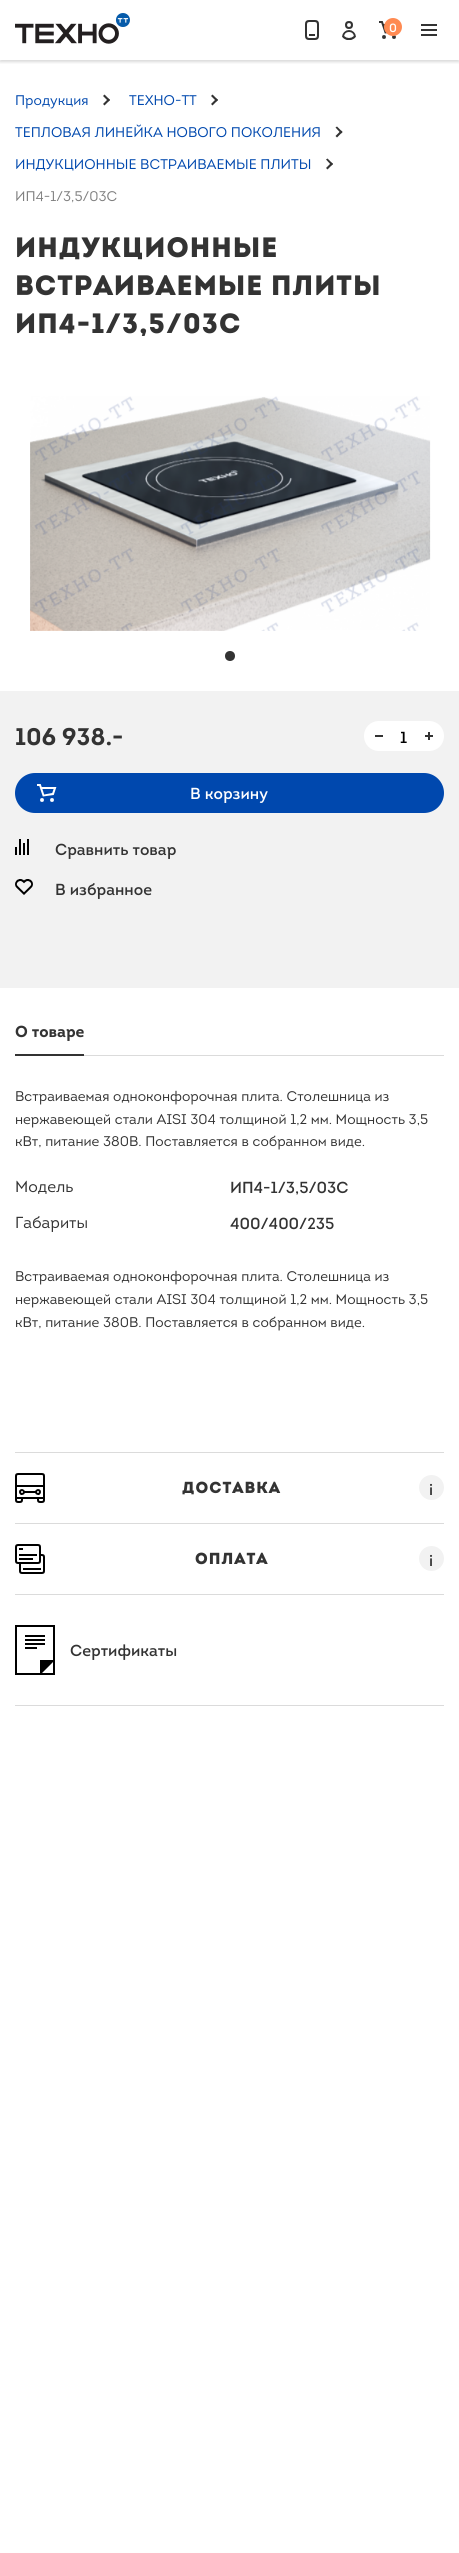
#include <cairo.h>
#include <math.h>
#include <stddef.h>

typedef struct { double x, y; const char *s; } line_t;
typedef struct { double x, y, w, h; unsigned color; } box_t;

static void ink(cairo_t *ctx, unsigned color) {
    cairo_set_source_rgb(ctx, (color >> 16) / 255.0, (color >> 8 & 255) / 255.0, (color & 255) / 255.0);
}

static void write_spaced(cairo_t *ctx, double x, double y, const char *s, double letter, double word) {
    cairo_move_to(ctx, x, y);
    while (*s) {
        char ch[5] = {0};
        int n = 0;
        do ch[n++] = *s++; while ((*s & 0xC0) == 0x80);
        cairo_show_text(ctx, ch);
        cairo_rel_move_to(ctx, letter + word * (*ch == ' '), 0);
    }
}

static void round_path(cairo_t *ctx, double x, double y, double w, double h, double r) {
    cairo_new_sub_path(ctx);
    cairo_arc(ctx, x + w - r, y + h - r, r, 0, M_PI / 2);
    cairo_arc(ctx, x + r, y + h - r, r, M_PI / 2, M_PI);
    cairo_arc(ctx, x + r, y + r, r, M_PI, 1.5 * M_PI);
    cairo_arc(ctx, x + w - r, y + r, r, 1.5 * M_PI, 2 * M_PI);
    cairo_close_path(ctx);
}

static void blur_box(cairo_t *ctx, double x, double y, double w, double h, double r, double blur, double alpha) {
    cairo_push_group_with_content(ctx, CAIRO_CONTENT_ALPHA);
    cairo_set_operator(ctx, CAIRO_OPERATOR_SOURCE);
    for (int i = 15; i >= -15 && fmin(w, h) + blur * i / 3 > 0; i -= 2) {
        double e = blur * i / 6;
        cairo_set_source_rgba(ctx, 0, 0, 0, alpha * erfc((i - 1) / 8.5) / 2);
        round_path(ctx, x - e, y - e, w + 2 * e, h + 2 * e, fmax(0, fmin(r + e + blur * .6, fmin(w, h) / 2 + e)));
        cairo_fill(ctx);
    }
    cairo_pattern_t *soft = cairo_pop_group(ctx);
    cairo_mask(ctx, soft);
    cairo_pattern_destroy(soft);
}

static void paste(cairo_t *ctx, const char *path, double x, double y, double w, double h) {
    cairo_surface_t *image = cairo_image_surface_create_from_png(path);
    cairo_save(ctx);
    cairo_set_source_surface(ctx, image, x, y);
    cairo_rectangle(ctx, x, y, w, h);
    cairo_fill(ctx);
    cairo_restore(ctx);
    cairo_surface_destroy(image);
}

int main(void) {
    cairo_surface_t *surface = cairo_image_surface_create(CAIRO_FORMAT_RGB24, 459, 2553);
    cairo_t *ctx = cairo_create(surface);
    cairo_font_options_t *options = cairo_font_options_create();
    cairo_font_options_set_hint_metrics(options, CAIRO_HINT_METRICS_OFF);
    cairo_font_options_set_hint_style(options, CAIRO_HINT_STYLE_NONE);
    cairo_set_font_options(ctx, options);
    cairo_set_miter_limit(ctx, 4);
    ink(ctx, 0xFFFFFF);
    cairo_paint(ctx);
    cairo_save(ctx);
    cairo_rectangle(ctx, 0, 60, 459, 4);
    cairo_clip(ctx);
    ink(ctx, 0x000000);
    blur_box(ctx, 0, 2, 459, 60, 0, 1.5, 0.15);
    cairo_restore(ctx);
    paste(ctx, "media/1.png", 15, 13, 115, 31);
    paste(ctx, "media/2.png", 305, 20, 14, 20);
    paste(ctx, "media/3.png", 342, 21, 14, 19);
    paste(ctx, "media/4.png", 379, 21, 17, 18);
    ink(ctx, 0xFF8A52);
    cairo_arc(ctx, 393, 27, 9, 0, 2 * M_PI);
    cairo_fill(ctx);
    cairo_select_font_face(ctx, "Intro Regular", CAIRO_FONT_SLANT_NORMAL, CAIRO_FONT_WEIGHT_NORMAL);
    cairo_set_font_size(ctx, 12);
    ink(ctx, 0xFFFFFF);
    cairo_move_to(ctx, 389, 32);
    cairo_show_text(ctx, "0");
    {
        static const box_t items[] = {
            {421, 29, 16, 2, 0x333333},
            {421, 24, 16, 2, 0x333333},
            {421, 34, 16, 2, 0x333333},
        };
        for (size_t i = 0; i < sizeof items / sizeof *items; i++) {
            ink(ctx, items[i].color);
            cairo_rectangle(ctx, items[i].x, items[i].y, items[i].w, items[i].h);
            cairo_fill(ctx);
        }
    }
    cairo_select_font_face(ctx, "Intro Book", CAIRO_FONT_SLANT_NORMAL, CAIRO_FONT_WEIGHT_NORMAL);
    cairo_set_font_size(ctx, 14);
    ink(ctx, 0x0048AE);
    cairo_move_to(ctx, 15, 105);
    cairo_show_text(ctx, "Продукция");
    ink(ctx, 0x333333);
    cairo_new_path(ctx);
    cairo_move_to(ctx, 103, 96);
    cairo_line_to(ctx, 104.5, 94.5);
    cairo_line_to(ctx, 110, 100);
    cairo_line_to(ctx, 108.5, 101.5);
    cairo_close_path(ctx);
    cairo_fill(ctx);
    cairo_new_path(ctx);
    cairo_move_to(ctx, 103, 104);
    cairo_line_to(ctx, 108.5, 98.5);
    cairo_line_to(ctx, 110, 100);
    cairo_line_to(ctx, 104.5, 105.5);
    cairo_close_path(ctx);
    cairo_fill(ctx);
    ink(ctx, 0x0048AE);
    cairo_move_to(ctx, 129, 105);
    cairo_show_text(ctx, "ТЕХНО-ТТ");
    ink(ctx, 0x333333);
    cairo_new_path(ctx);
    cairo_move_to(ctx, 211, 96);
    cairo_line_to(ctx, 212.5, 94.5);
    cairo_line_to(ctx, 218, 100);
    cairo_line_to(ctx, 216.5, 101.5);
    cairo_close_path(ctx);
    cairo_fill(ctx);
    cairo_new_path(ctx);
    cairo_move_to(ctx, 211, 104);
    cairo_line_to(ctx, 216.5, 98.5);
    cairo_line_to(ctx, 218, 100);
    cairo_line_to(ctx, 212.5, 105.5);
    cairo_close_path(ctx);
    cairo_fill(ctx);
    ink(ctx, 0x0048AE);
    cairo_move_to(ctx, 15, 137);
    cairo_show_text(ctx, "ТЕПЛОВАЯ ЛИНЕЙКА НОВОГО ПОКОЛЕНИЯ");
    ink(ctx, 0x333333);
    cairo_new_path(ctx);
    cairo_move_to(ctx, 335.5, 127.5);
    cairo_line_to(ctx, 337, 126.5);
    cairo_line_to(ctx, 342.5, 132);
    cairo_line_to(ctx, 341, 133.5);
    cairo_close_path(ctx);
    cairo_fill(ctx);
    cairo_new_path(ctx);
    cairo_move_to(ctx, 335.5, 136);
    cairo_line_to(ctx, 341, 130.5);
    cairo_line_to(ctx, 342.5, 132);
    cairo_line_to(ctx, 337, 137.5);
    cairo_close_path(ctx);
    cairo_fill(ctx);
    ink(ctx, 0x0048AE);
    cairo_move_to(ctx, 15, 169);
    cairo_show_text(ctx, "ИНДУКЦИОННЫЕ ВСТРАИВАЕМЫЕ ПЛИТЫ");
    ink(ctx, 0x333333);
    cairo_new_path(ctx);
    cairo_move_to(ctx, 326, 159.5);
    cairo_line_to(ctx, 327.5, 158.5);
    cairo_line_to(ctx, 333, 164);
    cairo_line_to(ctx, 331.5, 165.5);
    cairo_close_path(ctx);
    cairo_fill(ctx);
    cairo_new_path(ctx);
    cairo_move_to(ctx, 326, 168);
    cairo_line_to(ctx, 331.5, 162.5);
    cairo_line_to(ctx, 333, 164);
    cairo_line_to(ctx, 327.5, 169.5);
    cairo_close_path(ctx);
    cairo_fill(ctx);
    ink(ctx, 0x7F7F7F);
    cairo_move_to(ctx, 15, 201);
    cairo_show_text(ctx, "ИП4-1/3,5/03С");
    cairo_select_font_face(ctx, "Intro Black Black", CAIRO_FONT_SLANT_NORMAL, CAIRO_FONT_WEIGHT_NORMAL);
    cairo_set_font_size(ctx, 28);
    ink(ctx, 0x333333);
    {
        static const line_t items[] = {
            {15, 257, "ИНДУКЦИОННЫЕ"},
            {15, 295, "ВСТРАИВАЕМЫЕ ПЛИТЫ"},
            {15, 333, "ИП4-1/3,5/03С"},
        };
        for (size_t i = 0; i < sizeof items / sizeof *items; i++) {
            write_spaced(ctx, items[i].x, items[i].y, items[i].s, 1, 0);
        }
    }
    paste(ctx, "media/5.png", 30, 396, 401, 235);
    cairo_arc(ctx, 230, 656, 5, 0, 2 * M_PI);
    cairo_fill(ctx);
    ink(ctx, 0xF2F2F2);
    cairo_rectangle(ctx, 0, 691, 459, 297);
    cairo_fill(ctx);
    cairo_select_font_face(ctx, "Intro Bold", CAIRO_FONT_SLANT_NORMAL, CAIRO_FONT_WEIGHT_BOLD);
    cairo_set_font_size(ctx, 24);
    ink(ctx, 0x333333);
    cairo_move_to(ctx, 15, 745);
    cairo_show_text(ctx, "106 938.-");
    ink(ctx, 0xFFFFFF);
    cairo_new_path(ctx);
    cairo_move_to(ctx, 379, 721);
    cairo_line_to(ctx, 394, 721);
    cairo_line_to(ctx, 394, 751);
    cairo_line_to(ctx, 379, 751);
    cairo_curve_to(ctx, 370.5, 751, 364, 744.5, 364, 736);
    cairo_curve_to(ctx, 364, 727.5, 370.5, 721, 379, 721);
    cairo_close_path(ctx);
    cairo_fill(ctx);
    ink(ctx, 0x333333);
    cairo_rectangle(ctx, 375, 735, 8, 2);
    cairo_fill(ctx);
    ink(ctx, 0xFFFFFF);
    cairo_rectangle(ctx, 394, 721, 20, 30);
    cairo_fill(ctx);
    cairo_select_font_face(ctx, "Intro Regular", CAIRO_FONT_SLANT_NORMAL, CAIRO_FONT_WEIGHT_NORMAL);
    cairo_set_font_size(ctx, 16);
    ink(ctx, 0x000000);
    cairo_move_to(ctx, 400, 743);
    cairo_show_text(ctx, "1");
    ink(ctx, 0xFFFFFF);
    cairo_new_path(ctx);
    cairo_move_to(ctx, 414, 721);
    cairo_line_to(ctx, 429, 721);
    cairo_curve_to(ctx, 437.5, 721, 444, 727.5, 444, 736);
    cairo_curve_to(ctx, 444, 744.5, 437.5, 751, 429, 751);
    cairo_line_to(ctx, 414, 751);
    cairo_close_path(ctx);
    cairo_fill(ctx);
    ink(ctx, 0x333333);
    cairo_rectangle(ctx, 425, 735, 8, 2);
    cairo_fill(ctx);
    cairo_rectangle(ctx, 428, 732, 2, 8);
    cairo_fill(ctx);
    ink(ctx, 0x0048AE);
    round_path(ctx, 16, 774, 427, 38, 19);
    cairo_fill_preserve(ctx);
    cairo_stroke(ctx);
    paste(ctx, "media/6.png", 37, 784, 20, 18);
    ink(ctx, 0xFFFFFF);
    cairo_move_to(ctx, 190, 799);
    cairo_show_text(ctx, "В корзину");
    paste(ctx, "media/7.png", 15, 839, 14, 16);
    ink(ctx, 0x333333);
    cairo_move_to(ctx, 55, 855);
    cairo_show_text(ctx, "Сравнить товар");
    paste(ctx, "media/8.png", 15, 879, 18, 16);
    cairo_move_to(ctx, 55, 895);
    cairo_show_text(ctx, "В избранное");
    ink(ctx, 0xDBDBDB);
    cairo_rectangle(ctx, 15, 1705, 429, 1);
    cairo_fill(ctx);
    cairo_rectangle(ctx, 84, 1055, 360, 1);
    cairo_fill(ctx);
    cairo_select_font_face(ctx, "Intro Bold", CAIRO_FONT_SLANT_NORMAL, CAIRO_FONT_WEIGHT_BOLD);
    ink(ctx, 0x333333);
    cairo_move_to(ctx, 15, 1037);
    cairo_show_text(ctx, "О товаре");
    cairo_rectangle(ctx, 15, 1054, 69, 2);
    cairo_fill(ctx);
    cairo_select_font_face(ctx, "Intro Book", CAIRO_FONT_SLANT_NORMAL, CAIRO_FONT_WEIGHT_NORMAL);
    cairo_set_font_size(ctx, 14);
    {
        static const line_t items[] = {
            {15, 1101, "Встраиваемая одноконфорочная плита. Столешница из"},
            {15, 1124, "нержавеющей стали AISI 304 толщиной 1,2 мм. Мощность 3,5"},
            {15, 1146, "кВт, питание 380В. Поставляется в собранном виде."},
        };
        for (size_t i = 0; i < sizeof items / sizeof *items; i++) {
            cairo_move_to(ctx, items[i].x, items[i].y);
            cairo_show_text(ctx, items[i].s);
        }
    }
    cairo_set_font_size(ctx, 16);
    cairo_move_to(ctx, 15, 1192);
    cairo_show_text(ctx, "Модель");
    cairo_select_font_face(ctx, "Intro Regular", CAIRO_FONT_SLANT_NORMAL, CAIRO_FONT_WEIGHT_NORMAL);
    cairo_move_to(ctx, 230, 1193);
    cairo_show_text(ctx, "ИП4-1/3,5/03С");
    cairo_select_font_face(ctx, "Intro Book", CAIRO_FONT_SLANT_NORMAL, CAIRO_FONT_WEIGHT_NORMAL);
    cairo_move_to(ctx, 15, 1228);
    cairo_show_text(ctx, "Габариты");
    cairo_select_font_face(ctx, "Intro Regular", CAIRO_FONT_SLANT_NORMAL, CAIRO_FONT_WEIGHT_NORMAL);
    cairo_move_to(ctx, 230, 1229);
    cairo_show_text(ctx, "400/400/235");
    cairo_select_font_face(ctx, "Intro Book", CAIRO_FONT_SLANT_NORMAL, CAIRO_FONT_WEIGHT_NORMAL);
    cairo_set_font_size(ctx, 14);
    {
        static const line_t items[] = {
            {15, 1281, "Встраиваемая одноконфорочная плита. Столешница из"},
            {15, 1304, "нержавеющей стали AISI 304 толщиной 1,2 мм. Мощность 3,5"},
            {15, 1327, "кВт, питание 380В. Поставляется в собранном виде."},
        };
        for (size_t i = 0; i < sizeof items / sizeof *items; i++) {
            cairo_move_to(ctx, items[i].x, items[i].y);
            cairo_show_text(ctx, items[i].s);
        }
    }
    ink(ctx, 0xDBDBDB);
    cairo_rectangle(ctx, 15, 1452, 429, 1);
    cairo_fill(ctx);
    cairo_rectangle(ctx, 15, 1523, 429, 1);
    cairo_fill(ctx);
    paste(ctx, "media/9.png", 15, 1473, 30, 30);
    cairo_select_font_face(ctx, "Intro Black Black", CAIRO_FONT_SLANT_NORMAL, CAIRO_FONT_WEIGHT_NORMAL);
    cairo_set_font_size(ctx, 16);
    ink(ctx, 0x333333);
    write_spaced(ctx, 182, 1493, "ДОСТАВКА", 1, 0);
    ink(ctx, 0xF2F2F2);
    cairo_new_path(ctx);
    cairo_arc(ctx, 431.5, 1487.5, 12.5, 0, 2 * M_PI);
    cairo_fill(ctx);
    cairo_select_font_face(ctx, "Intro Regular", CAIRO_FONT_SLANT_NORMAL, CAIRO_FONT_WEIGHT_NORMAL);
    ink(ctx, 0x333333);
    write_spaced(ctx, 429, 1495, "i", 1, 0);
    ink(ctx, 0xDBDBDB);
    cairo_rectangle(ctx, 15, 1594, 429, 1);
    cairo_fill(ctx);
    paste(ctx, "media/10.png", 15, 1544, 30, 30);
    cairo_select_font_face(ctx, "Intro Black Black", CAIRO_FONT_SLANT_NORMAL, CAIRO_FONT_WEIGHT_NORMAL);
    ink(ctx, 0x333333);
    write_spaced(ctx, 195, 1564, "ОПЛАТА", 1, 0);
    ink(ctx, 0xF2F2F2);
    cairo_new_path(ctx);
    cairo_arc(ctx, 431.5, 1558.5, 12.5, 0, 2 * M_PI);
    cairo_fill(ctx);
    cairo_select_font_face(ctx, "Intro Regular", CAIRO_FONT_SLANT_NORMAL, CAIRO_FONT_WEIGHT_NORMAL);
    ink(ctx, 0x333333);
    write_spaced(ctx, 429, 1566, "i", 1, 0);
    paste(ctx, "media/11.png", 15, 1625, 40, 50);
    cairo_move_to(ctx, 70, 1656);
    cairo_show_text(ctx, "Cертификаты");
    cairo_surface_write_to_png(surface, "image.png");
    cairo_font_options_destroy(options);
    cairo_destroy(ctx);
    cairo_surface_destroy(surface);
    return 0;
}
